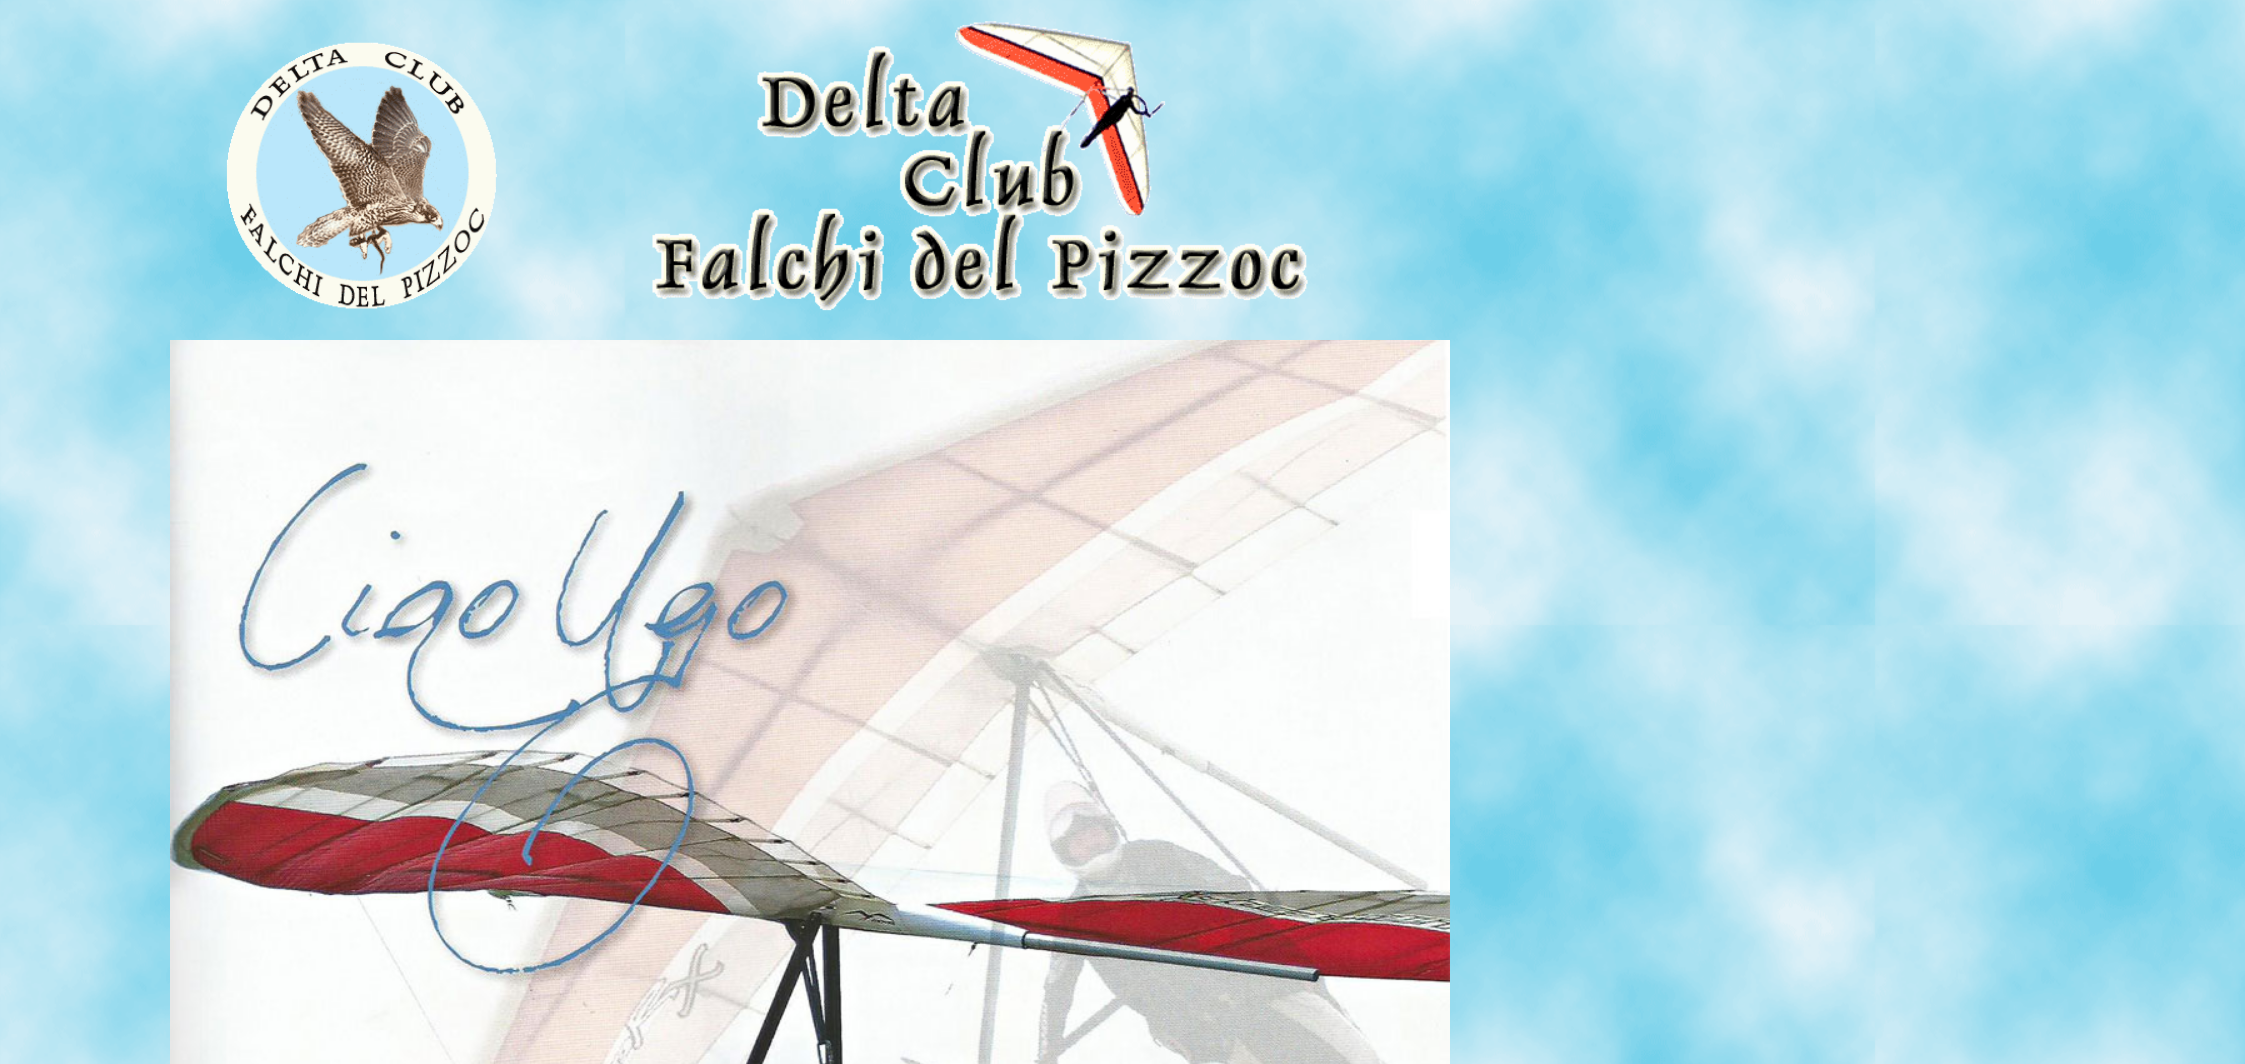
#include <cairo.h>
#include <math.h>
#include <stddef.h>


static void ink(cairo_t *ctx, unsigned color) {
    cairo_set_source_rgb(ctx, (color >> 16) / 255.0, (color >> 8 & 255) / 255.0, (color & 255) / 255.0);
}

static void paste(cairo_t *ctx, const char *path, double x, double y, double w, double h) {
    cairo_surface_t *image = cairo_image_surface_create_from_png(path);
    cairo_save(ctx);
    cairo_set_source_surface(ctx, image, x, y);
    cairo_rectangle(ctx, x, y, w, h);
    cairo_fill(ctx);
    cairo_restore(ctx);
    cairo_surface_destroy(image);
}

int main(void) {
    cairo_surface_t *surface = cairo_image_surface_create(CAIRO_FORMAT_RGB24, 2245, 1064);
    cairo_t *ctx = cairo_create(surface);
    cairo_font_options_t *options = cairo_font_options_create();
    cairo_font_options_set_hint_metrics(options, CAIRO_HINT_METRICS_OFF);
    cairo_font_options_set_hint_style(options, CAIRO_HINT_STYLE_NONE);
    cairo_set_font_options(ctx, options);
    cairo_set_miter_limit(ctx, 4);
    ink(ctx, 0xFFFFFF);
    cairo_paint(ctx);
    paste(ctx, "media/1.png", 0, 0, 2245, 1064);
    paste(ctx, "media/2.png", 226, 42, 271, 267);
    paste(ctx, "media/3.png", 652, 21, 656, 290);
    paste(ctx, "media/4.png", 170, 340, 1280, 724);
    cairo_surface_write_to_png(surface, "image.png");
    cairo_font_options_destroy(options);
    cairo_destroy(ctx);
    cairo_surface_destroy(surface);
    return 0;
}
